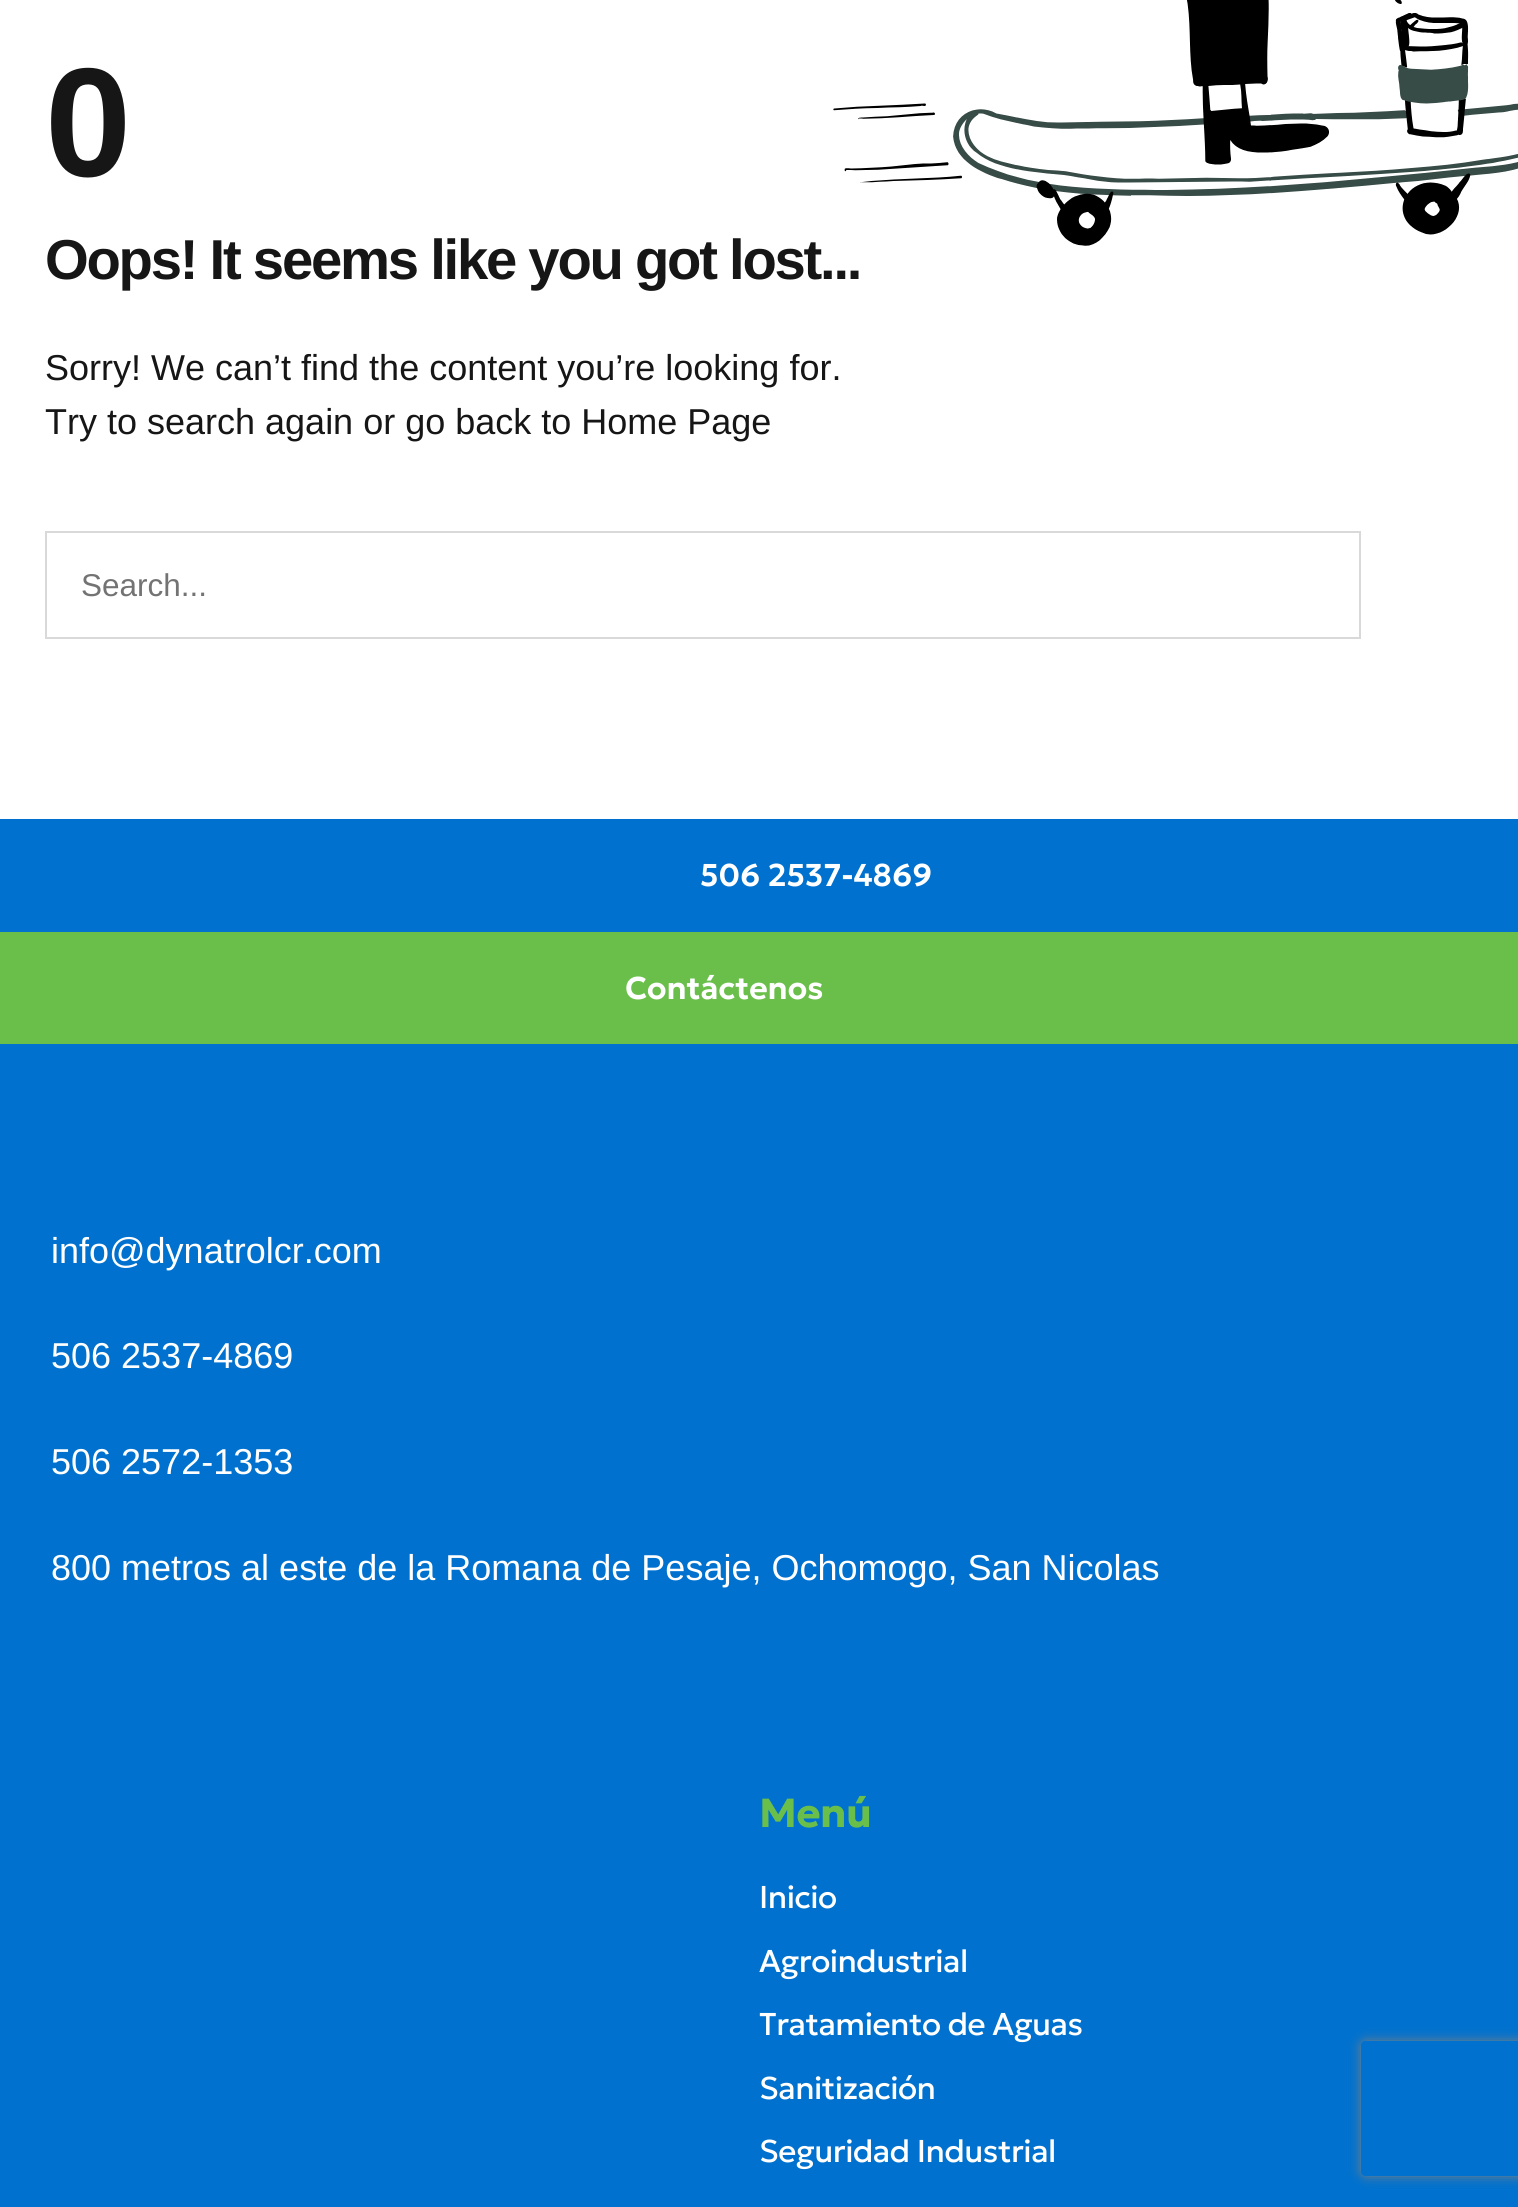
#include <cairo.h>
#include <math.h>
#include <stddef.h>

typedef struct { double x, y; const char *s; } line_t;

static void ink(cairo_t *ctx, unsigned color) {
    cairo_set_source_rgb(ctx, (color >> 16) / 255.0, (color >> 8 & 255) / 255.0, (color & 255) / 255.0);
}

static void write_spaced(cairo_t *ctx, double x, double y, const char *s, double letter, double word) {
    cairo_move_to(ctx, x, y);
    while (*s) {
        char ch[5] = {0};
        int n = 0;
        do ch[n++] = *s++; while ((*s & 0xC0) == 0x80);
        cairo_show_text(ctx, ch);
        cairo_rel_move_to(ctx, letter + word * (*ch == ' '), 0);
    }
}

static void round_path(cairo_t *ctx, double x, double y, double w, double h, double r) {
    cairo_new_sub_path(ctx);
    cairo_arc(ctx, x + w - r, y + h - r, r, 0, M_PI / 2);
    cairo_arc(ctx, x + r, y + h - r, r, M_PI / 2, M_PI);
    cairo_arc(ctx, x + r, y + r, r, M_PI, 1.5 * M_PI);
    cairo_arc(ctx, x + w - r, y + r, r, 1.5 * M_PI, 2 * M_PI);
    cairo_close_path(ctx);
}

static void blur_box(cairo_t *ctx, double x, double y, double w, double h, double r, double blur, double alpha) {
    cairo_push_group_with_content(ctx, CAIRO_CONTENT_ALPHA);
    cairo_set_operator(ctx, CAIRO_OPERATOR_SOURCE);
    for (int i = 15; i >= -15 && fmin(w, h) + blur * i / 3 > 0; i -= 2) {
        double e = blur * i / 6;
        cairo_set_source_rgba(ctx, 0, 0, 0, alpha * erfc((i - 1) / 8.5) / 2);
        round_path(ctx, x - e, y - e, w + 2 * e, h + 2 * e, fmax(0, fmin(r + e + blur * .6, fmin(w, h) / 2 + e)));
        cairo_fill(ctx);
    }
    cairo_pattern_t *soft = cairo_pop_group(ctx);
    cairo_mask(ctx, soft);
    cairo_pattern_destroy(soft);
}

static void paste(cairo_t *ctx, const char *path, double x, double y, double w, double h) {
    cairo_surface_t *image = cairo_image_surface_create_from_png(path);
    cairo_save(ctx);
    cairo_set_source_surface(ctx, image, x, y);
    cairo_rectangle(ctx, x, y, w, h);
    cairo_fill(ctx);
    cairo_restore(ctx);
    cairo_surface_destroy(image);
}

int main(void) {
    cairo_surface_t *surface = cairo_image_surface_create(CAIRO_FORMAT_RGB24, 1518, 2207);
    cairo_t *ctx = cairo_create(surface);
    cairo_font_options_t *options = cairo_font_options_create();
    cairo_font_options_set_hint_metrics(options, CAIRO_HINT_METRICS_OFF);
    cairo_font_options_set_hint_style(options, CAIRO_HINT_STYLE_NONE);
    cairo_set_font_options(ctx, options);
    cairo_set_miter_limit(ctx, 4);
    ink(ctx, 0xFFFFFF);
    cairo_paint(ctx);
    cairo_select_font_face(ctx, "Liberation Sans", CAIRO_FONT_SLANT_NORMAL, CAIRO_FONT_WEIGHT_BOLD);
    cairo_set_font_size(ctx, 155);
    ink(ctx, 0x161616);
    cairo_move_to(ctx, 45, 176);
    cairo_show_text(ctx, "0");
    paste(ctx, "media/1.png", 833, 0, 685, 246);
    cairo_set_font_size(ctx, 56.25);
    write_spaced(ctx, 45, 279, "Oops! It seems like you got lost...", -2.25, 0);
    cairo_select_font_face(ctx, "Liberation Sans", CAIRO_FONT_SLANT_NORMAL, CAIRO_FONT_WEIGHT_NORMAL);
    cairo_set_font_size(ctx, 36);
    cairo_move_to(ctx, 45, 380);
    cairo_show_text(ctx, "Sorry! We can’t find the content you’re looking for.");
    cairo_move_to(ctx, 45, 434);
    cairo_show_text(ctx, "Try to search again or go back to Home Page");
    cairo_rectangle(ctx, 46, 532, 1314, 106);
    ink(ctx, 0xD9D9D9);
    cairo_stroke(ctx);
    cairo_set_font_size(ctx, 31.5);
    ink(ctx, 0x737373);
    cairo_move_to(ctx, 81, 596);
    cairo_show_text(ctx, "Search...");
    ink(ctx, 0x0071CE);
    cairo_rectangle(ctx, 0, 819, 1518, 113);
    cairo_fill(ctx);
    cairo_select_font_face(ctx, "Geologica SemiBold", CAIRO_FONT_SLANT_NORMAL, CAIRO_FONT_WEIGHT_NORMAL);
    ink(ctx, 0xFFFFFF);
    cairo_move_to(ctx, 700, 886);
    cairo_show_text(ctx, "506 2537-4869");
    ink(ctx, 0x6ABF4B);
    cairo_rectangle(ctx, 0, 932, 1518, 112);
    cairo_fill(ctx);
    ink(ctx, 0xFFFFFF);
    cairo_move_to(ctx, 625, 999);
    cairo_show_text(ctx, "Contáctenos");
    ink(ctx, 0x0071CE);
    cairo_rectangle(ctx, 0, 1044, 1518, 1163);
    cairo_fill(ctx);
    cairo_select_font_face(ctx, "Liberation Sans", CAIRO_FONT_SLANT_NORMAL, CAIRO_FONT_WEIGHT_NORMAL);
    cairo_set_font_size(ctx, 36);
    ink(ctx, 0xFFFFFF);
    {
        static const line_t items[] = {
            {51, 1263, "info@dynatrolcr.com"},
            {51, 1368, "506 2537-4869"},
            {51, 1474, "506 2572-1353"},
            {51, 1580, "800 metros al este de la Romana de Pesaje, Ochomogo, San Nicolas"},
        };
        for (size_t i = 0; i < sizeof items / sizeof *items; i++) {
            cairo_move_to(ctx, items[i].x, items[i].y);
            cairo_show_text(ctx, items[i].s);
        }
    }
    cairo_select_font_face(ctx, "Geologica", CAIRO_FONT_SLANT_NORMAL, CAIRO_FONT_WEIGHT_BOLD);
    cairo_set_font_size(ctx, 40.5);
    ink(ctx, 0x6ABF4B);
    write_spaced(ctx, 759, 1827, "Menú", -0.5, 0);
    cairo_select_font_face(ctx, "Geologica", CAIRO_FONT_SLANT_NORMAL, CAIRO_FONT_WEIGHT_NORMAL);
    cairo_set_font_size(ctx, 31.5);
    ink(ctx, 0xFFFFFF);
    {
        static const line_t items[] = {
            {759, 1908, "Inicio"},
            {759, 1972, "Agroindustrial"},
            {759, 2035, "Tratamiento de Aguas"},
            {759, 2099, "Sanitización"},
            {759, 2162, "Seguridad Industrial"},
        };
        for (size_t i = 0; i < sizeof items / sizeof *items; i++) {
            write_spaced(ctx, items[i].x, items[i].y, items[i].s, -0.5, 0);
        }
    }
    cairo_save(ctx);
    cairo_set_fill_rule(ctx, CAIRO_FILL_RULE_EVEN_ODD);
    cairo_new_path(ctx);
    cairo_move_to(ctx, 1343, 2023);
    cairo_line_to(ctx, 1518, 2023);
    cairo_line_to(ctx, 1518, 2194);
    cairo_line_to(ctx, 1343, 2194);
    cairo_close_path(ctx);
    cairo_move_to(ctx, 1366, 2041);
    cairo_line_to(ctx, 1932, 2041);
    cairo_curve_to(ctx, 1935, 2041, 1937, 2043, 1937, 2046);
    cairo_line_to(ctx, 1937, 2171);
    cairo_curve_to(ctx, 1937, 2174, 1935, 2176, 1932, 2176);
    cairo_line_to(ctx, 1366, 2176);
    cairo_curve_to(ctx, 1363, 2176, 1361, 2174, 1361, 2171);
    cairo_line_to(ctx, 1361, 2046);
    cairo_curve_to(ctx, 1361, 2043, 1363, 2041, 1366, 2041);
    cairo_close_path(ctx);
    cairo_clip(ctx);
    ink(ctx, 0x808080);
    blur_box(ctx, 1361, 2041, 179, 135, 5, 5.5, 1);
    cairo_restore(ctx);
    cairo_surface_write_to_png(surface, "image.png");
    cairo_font_options_destroy(options);
    cairo_destroy(ctx);
    cairo_surface_destroy(surface);
    return 0;
}
